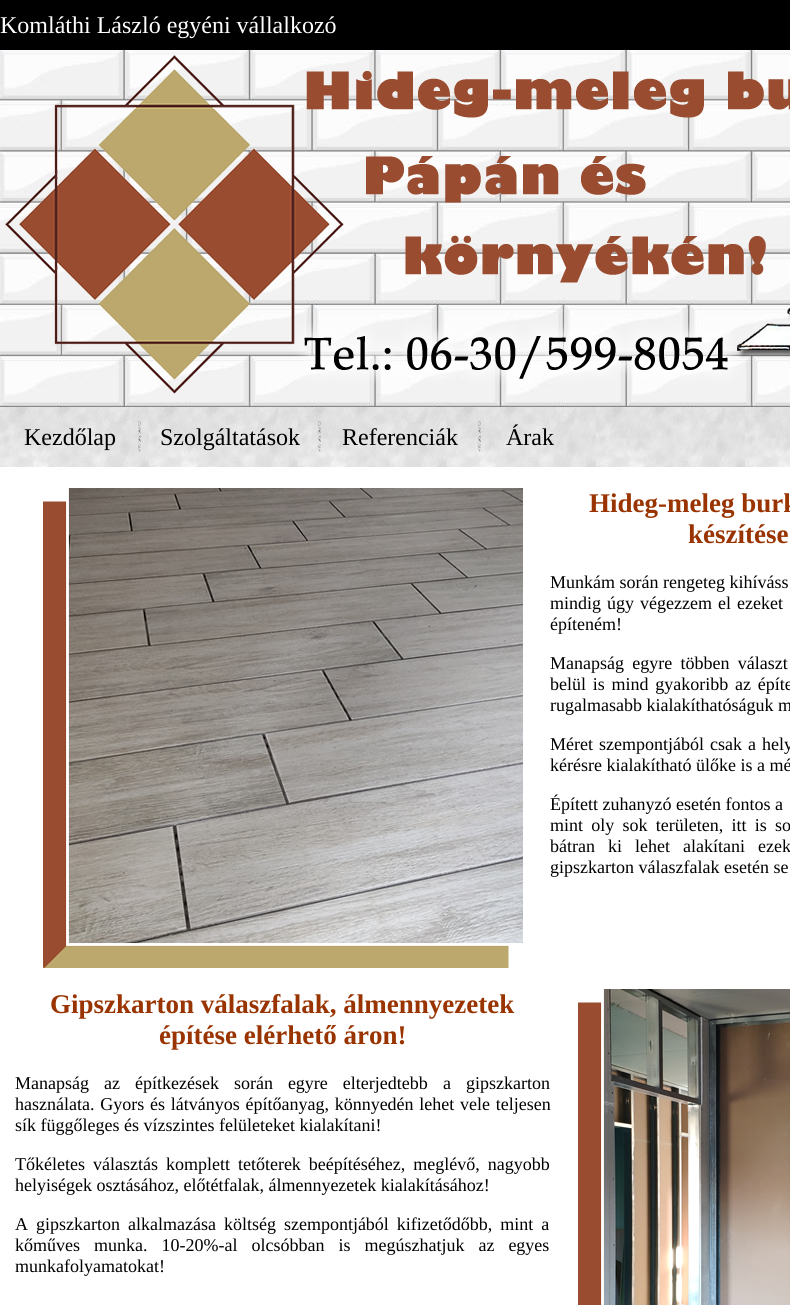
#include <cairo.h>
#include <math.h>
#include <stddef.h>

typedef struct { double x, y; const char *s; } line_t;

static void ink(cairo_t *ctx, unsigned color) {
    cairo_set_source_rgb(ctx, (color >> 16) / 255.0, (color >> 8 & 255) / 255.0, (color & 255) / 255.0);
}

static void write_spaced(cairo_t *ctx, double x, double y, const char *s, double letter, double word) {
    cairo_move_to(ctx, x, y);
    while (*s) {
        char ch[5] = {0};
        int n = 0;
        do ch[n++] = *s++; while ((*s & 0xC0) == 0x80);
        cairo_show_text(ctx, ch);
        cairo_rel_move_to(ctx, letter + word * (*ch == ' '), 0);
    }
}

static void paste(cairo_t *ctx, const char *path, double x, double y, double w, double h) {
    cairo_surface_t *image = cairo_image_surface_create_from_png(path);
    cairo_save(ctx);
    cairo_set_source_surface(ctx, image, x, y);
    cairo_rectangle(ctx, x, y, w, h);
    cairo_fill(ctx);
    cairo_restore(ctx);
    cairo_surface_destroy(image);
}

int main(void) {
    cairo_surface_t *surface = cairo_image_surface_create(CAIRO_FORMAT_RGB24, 790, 1305);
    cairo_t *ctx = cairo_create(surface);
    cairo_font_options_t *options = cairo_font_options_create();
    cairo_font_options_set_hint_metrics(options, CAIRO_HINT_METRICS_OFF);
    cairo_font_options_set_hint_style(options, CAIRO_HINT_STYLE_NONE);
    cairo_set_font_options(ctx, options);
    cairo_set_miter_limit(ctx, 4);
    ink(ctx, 0xFFFFFF);
    cairo_paint(ctx);
    paste(ctx, "media/1.png", 0, 0, 790, 467);
    cairo_select_font_face(ctx, "Liberation Serif", CAIRO_FONT_SLANT_NORMAL, CAIRO_FONT_WEIGHT_NORMAL);
    cairo_set_font_size(ctx, 24);
    ink(ctx, 0xFFFFFF);
    cairo_move_to(ctx, 0, 33);
    cairo_show_text(ctx, "Komláthi László egyéni vállalkozó");
    paste(ctx, "media/2.png", 0, 50, 790, 357);
    paste(ctx, "media/3.png", 5, 55, 785, 339);
    paste(ctx, "media/4.png", 138, 420, 343, 32);
    ink(ctx, 0x000000);
    {
        static const line_t items[] = {
            {24, 445, "Kezdőlap"},
            {160, 445, "Szolgáltatások"},
            {342, 445, "Referenciák"},
            {506, 445, "Árak"},
        };
        for (size_t i = 0; i < sizeof items / sizeof *items; i++) {
            cairo_move_to(ctx, items[i].x, items[i].y);
            cairo_show_text(ctx, items[i].s);
        }
    }
    paste(ctx, "media/5.png", 43, 488, 480, 480);
    cairo_select_font_face(ctx, "Liberation Serif", CAIRO_FONT_SLANT_NORMAL, CAIRO_FONT_WEIGHT_BOLD);
    cairo_set_font_size(ctx, 27);
    ink(ctx, 0x993300);
    cairo_move_to(ctx, 589, 512);
    cairo_show_text(ctx, "Hideg-meleg burk");
    cairo_move_to(ctx, 688, 543);
    cairo_show_text(ctx, "készítése");
    cairo_select_font_face(ctx, "Liberation Serif", CAIRO_FONT_SLANT_NORMAL, CAIRO_FONT_WEIGHT_NORMAL);
    cairo_set_font_size(ctx, 18);
    ink(ctx, 0x000000);
    cairo_move_to(ctx, 550, 588);
    cairo_show_text(ctx, "Munkám során rengeteg kihíváss");
    write_spaced(ctx, 550, 609, "mindig úgy végezzem el ezeket", 0, 1.5);
    cairo_move_to(ctx, 550, 630);
    cairo_show_text(ctx, "építeném!");
    write_spaced(ctx, 550, 669, "Manapság egyre többen választ", 0, 3.75);
    write_spaced(ctx, 550, 690, "belül is mind gyakoribb az építe", 0, 2.25);
    cairo_move_to(ctx, 550, 711);
    cairo_show_text(ctx, "rugalmasabb kialakíthatóságuk m");
    write_spaced(ctx, 550, 750, "Méret szempontjából csak a hely", 0, 1.5);
    cairo_move_to(ctx, 550, 771);
    cairo_show_text(ctx, "kérésre kialakítható ülőke is a mé");
    cairo_move_to(ctx, 550, 810);
    cairo_show_text(ctx, "Épített zuhanyzó esetén fontos a");
    write_spaced(ctx, 550, 831, "mint oly sok területen, itt is so", 0, 3.75);
    write_spaced(ctx, 550, 852, "bátran ki lehet alakítani ezek", 0, 8.5);
    cairo_move_to(ctx, 550, 873);
    cairo_show_text(ctx, "gipszkarton válaszfalak esetén se");
    cairo_select_font_face(ctx, "Liberation Serif", CAIRO_FONT_SLANT_NORMAL, CAIRO_FONT_WEIGHT_BOLD);
    cairo_set_font_size(ctx, 27);
    ink(ctx, 0x993300);
    cairo_move_to(ctx, 50, 1013);
    cairo_show_text(ctx, "Gipszkarton válaszfalak, álmennyezetek");
    cairo_move_to(ctx, 159, 1044);
    cairo_show_text(ctx, "építése elérhető áron!");
    cairo_select_font_face(ctx, "Liberation Serif", CAIRO_FONT_SLANT_NORMAL, CAIRO_FONT_WEIGHT_NORMAL);
    cairo_set_font_size(ctx, 18);
    ink(ctx, 0x000000);
    write_spaced(ctx, 15, 1089, "Manapság az építkezések során egyre elterjedtebb", 0, 10.5);
    write_spaced(ctx, 443, 1089, "a gipszkarton", 0, 10.5);
    write_spaced(ctx, 15, 1110, "használata. Gyors és látványos építőanyag, könnyedén lehet vele teljesen", 0, 1.25);
    cairo_move_to(ctx, 15, 1131);
    cairo_show_text(ctx, "sík függőleges és vízszintes felületeket kialakítani!");
    write_spaced(ctx, 15, 1170, "Tőkéletes választás komplett tetőterek beépítéséhez, meglévő, nagyobb", 0, 3.5);
    cairo_move_to(ctx, 15, 1191);
    cairo_show_text(ctx, "helyiségek osztásához, előtétfalak, álmennyezetek kialakításához!");
    write_spaced(ctx, 15, 1230, "A gipszkarton alkalmazása költség szempontjából kifizetődőbb, mint a", 0, 3.5);
    write_spaced(ctx, 15, 1251, "kőműves munka. 10-20%-al olcsóbban is megúszhatjuk az egyes", 0, 9.5);
    cairo_move_to(ctx, 15, 1272);
    cairo_show_text(ctx, "munkafolyamatokat!");
    paste(ctx, "media/6.png", 578, 989, 212, 316);
    cairo_surface_write_to_png(surface, "image.png");
    cairo_font_options_destroy(options);
    cairo_destroy(ctx);
    cairo_surface_destroy(surface);
    return 0;
}
